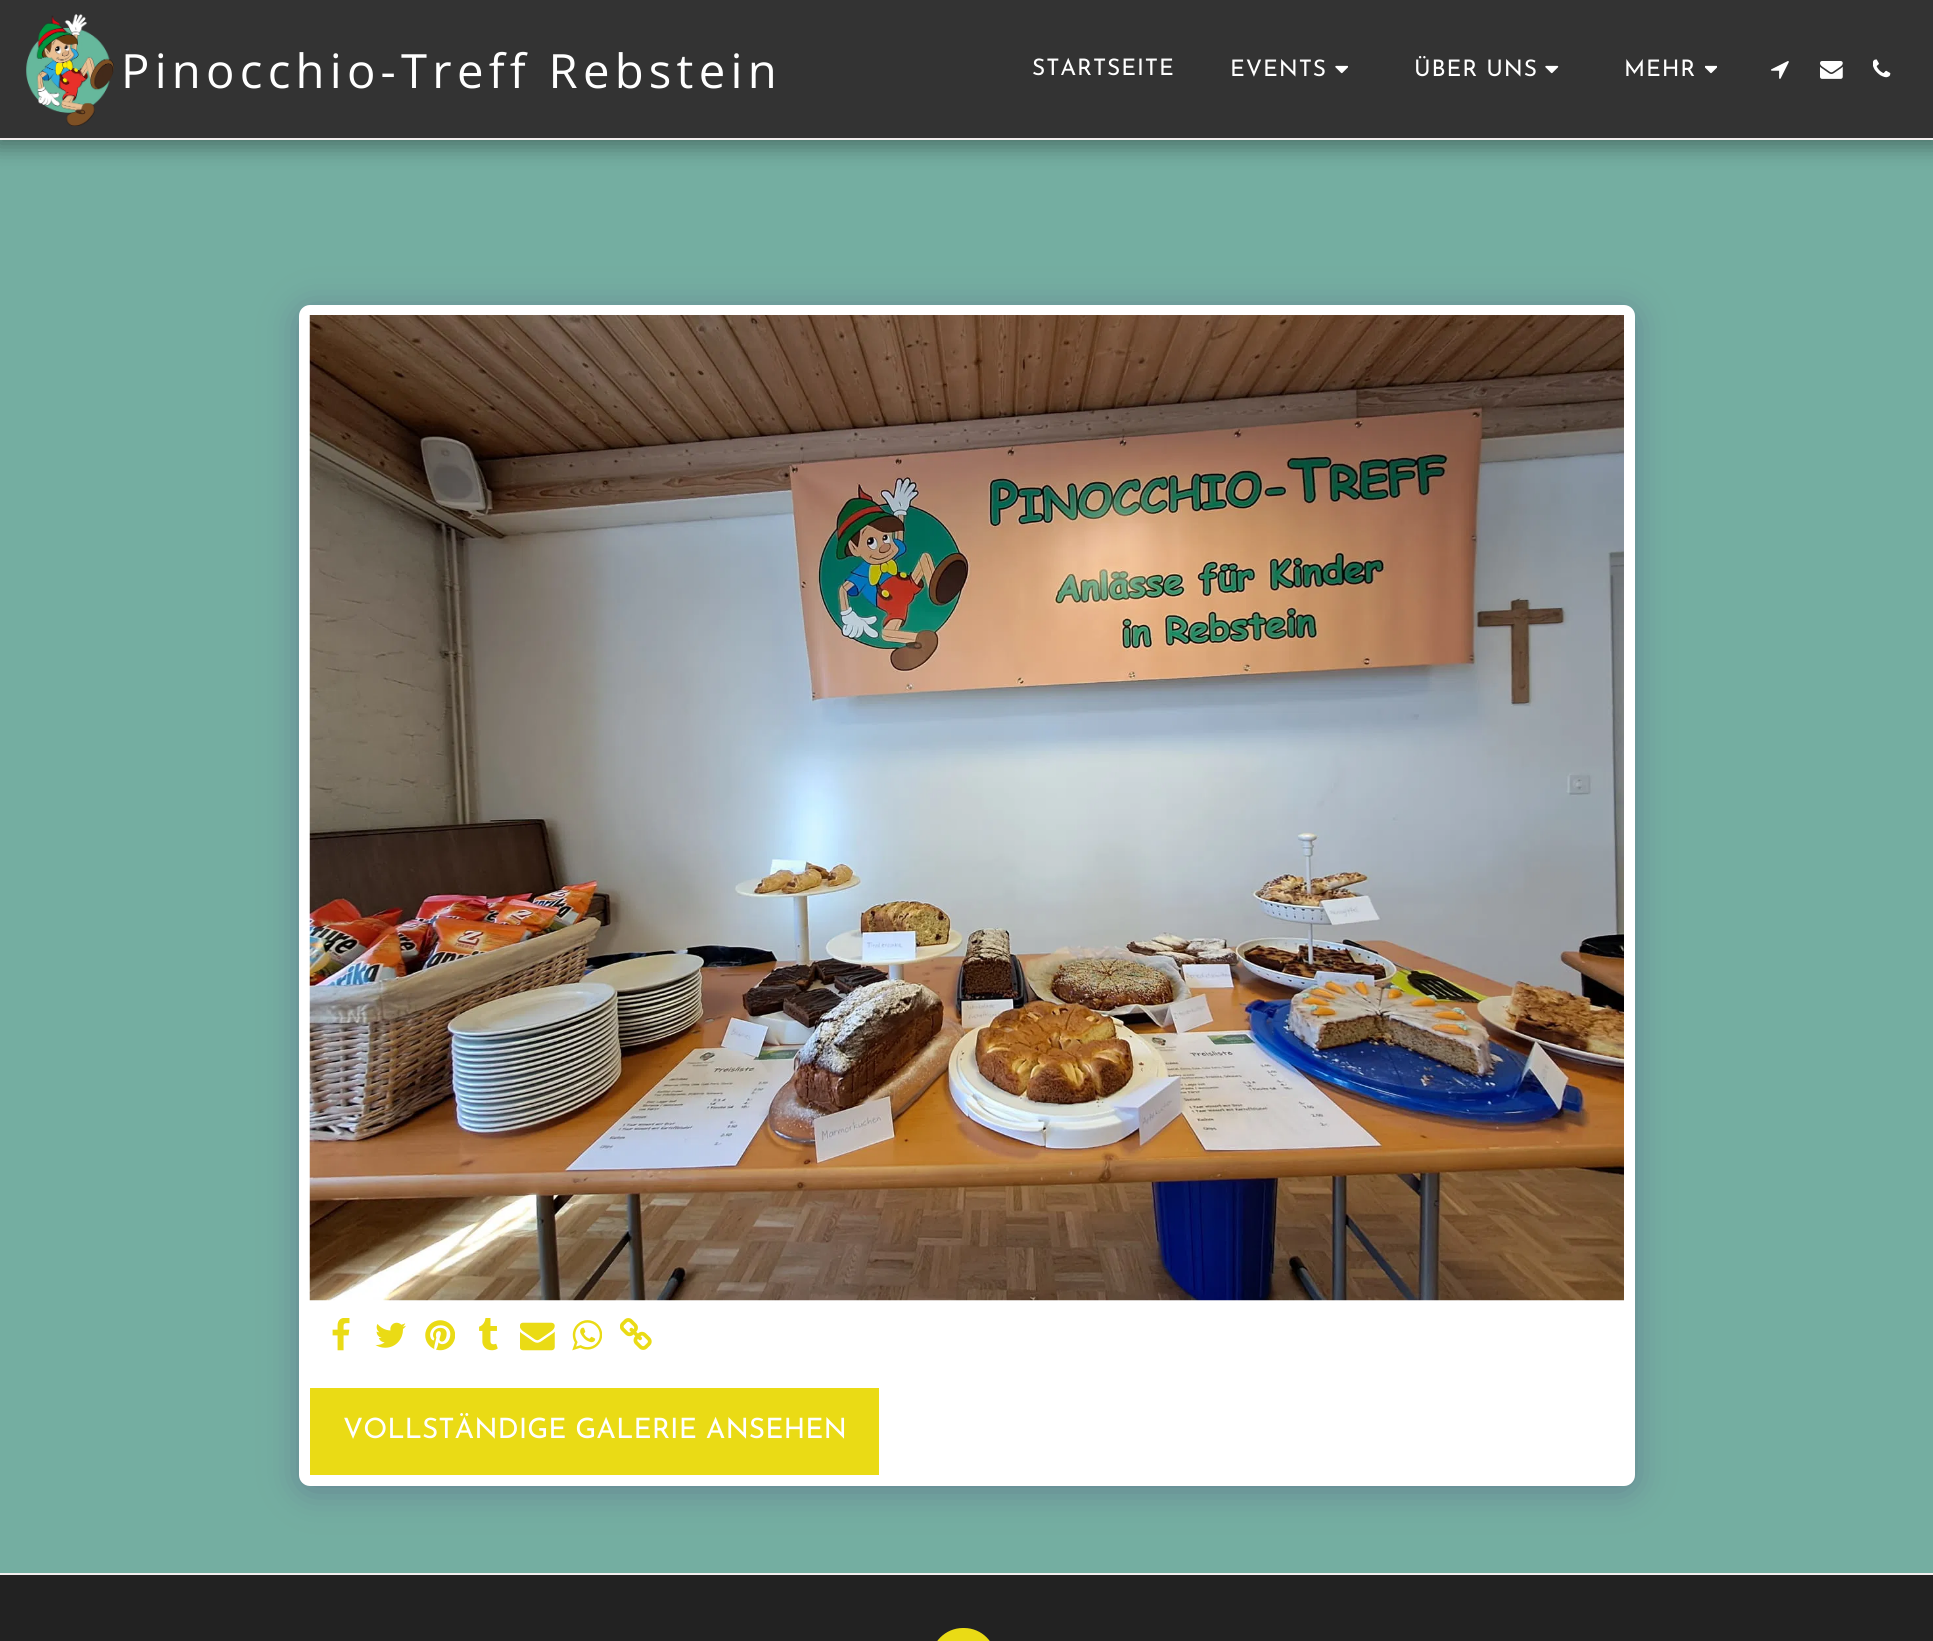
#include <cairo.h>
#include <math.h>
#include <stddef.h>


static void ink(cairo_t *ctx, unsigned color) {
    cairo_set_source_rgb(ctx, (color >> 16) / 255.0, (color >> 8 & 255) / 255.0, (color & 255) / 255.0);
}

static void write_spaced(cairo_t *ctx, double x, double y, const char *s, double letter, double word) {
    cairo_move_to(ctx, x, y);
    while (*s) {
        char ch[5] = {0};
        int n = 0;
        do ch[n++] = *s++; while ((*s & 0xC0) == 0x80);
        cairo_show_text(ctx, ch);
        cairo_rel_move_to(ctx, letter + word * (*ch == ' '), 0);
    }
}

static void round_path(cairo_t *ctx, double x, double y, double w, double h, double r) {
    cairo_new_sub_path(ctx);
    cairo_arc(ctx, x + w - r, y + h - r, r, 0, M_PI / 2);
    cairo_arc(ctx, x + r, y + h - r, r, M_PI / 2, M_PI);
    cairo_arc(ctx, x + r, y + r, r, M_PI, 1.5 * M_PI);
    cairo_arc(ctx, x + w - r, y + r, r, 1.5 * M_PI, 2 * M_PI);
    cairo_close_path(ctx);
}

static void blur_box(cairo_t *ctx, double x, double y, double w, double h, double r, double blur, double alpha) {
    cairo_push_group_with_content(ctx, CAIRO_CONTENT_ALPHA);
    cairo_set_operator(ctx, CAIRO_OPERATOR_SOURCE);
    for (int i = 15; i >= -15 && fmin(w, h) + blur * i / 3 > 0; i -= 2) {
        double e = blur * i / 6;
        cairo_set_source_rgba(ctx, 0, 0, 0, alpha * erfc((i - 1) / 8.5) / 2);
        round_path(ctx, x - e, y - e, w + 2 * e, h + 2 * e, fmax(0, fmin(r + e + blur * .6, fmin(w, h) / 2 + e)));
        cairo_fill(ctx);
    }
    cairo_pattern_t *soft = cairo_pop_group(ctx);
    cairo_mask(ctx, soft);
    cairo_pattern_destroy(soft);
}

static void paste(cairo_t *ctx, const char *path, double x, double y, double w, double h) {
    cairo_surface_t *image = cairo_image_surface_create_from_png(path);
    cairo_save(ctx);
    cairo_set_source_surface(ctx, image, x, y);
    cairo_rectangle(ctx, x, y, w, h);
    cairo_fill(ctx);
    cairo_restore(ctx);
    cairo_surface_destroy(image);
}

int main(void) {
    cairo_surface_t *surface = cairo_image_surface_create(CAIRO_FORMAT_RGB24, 1933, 1641);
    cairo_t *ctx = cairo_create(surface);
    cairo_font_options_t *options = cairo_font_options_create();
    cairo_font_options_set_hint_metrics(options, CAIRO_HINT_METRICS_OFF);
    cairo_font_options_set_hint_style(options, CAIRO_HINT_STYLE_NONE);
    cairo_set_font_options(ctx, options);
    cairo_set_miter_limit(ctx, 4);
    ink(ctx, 0x74AEA1);
    cairo_paint(ctx);
    ink(ctx, 0x000000);
    blur_box(ctx, -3, 0, 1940, 147, 0, 10.5, 0.35);
    ink(ctx, 0x333333);
    cairo_rectangle(ctx, 0, 0, 1933, 138);
    cairo_fill(ctx);
    ink(ctx, 0xF3EEEE);
    cairo_rectangle(ctx, 0, 138, 1933, 2);
    cairo_fill(ctx);
    paste(ctx, "media/1.png", 26, 14, 88, 112);
    cairo_select_font_face(ctx, "Open Sans", CAIRO_FONT_SLANT_NORMAL, CAIRO_FONT_WEIGHT_NORMAL);
    cairo_set_font_size(ctx, 47.25);
    ink(ctx, 0xFFFFFF);
    write_spaced(ctx, 121, 88, "Pinocchio-Treff Rebstein", 5.25, 0);
    cairo_select_font_face(ctx, "Josefin Sans", CAIRO_FONT_SLANT_NORMAL, CAIRO_FONT_WEIGHT_NORMAL);
    cairo_set_font_size(ctx, 22.75);
    write_spaced(ctx, 1032, 75, "STARTSEITE", 0.9, 0);
    write_spaced(ctx, 1230, 76, "EVENTS", 0.9, 0);
    paste(ctx, "media/2.png", 1335, 65, 13, 9);
    write_spaced(ctx, 1414, 76, "ÜBER UNS", 0.9, 0);
    paste(ctx, "media/3.png", 1545, 65, 14, 9);
    write_spaced(ctx, 1624, 76, "MEHR", 0.9, 0);
    paste(ctx, "media/4.png", 1705, 65, 12, 9);
    paste(ctx, "media/5.png", 1771, 61, 18, 18);
    paste(ctx, "media/6.png", 1820, 61, 23, 18);
    paste(ctx, "media/7.png", 1873, 59, 18, 19);
    ink(ctx, 0x4D3F7A);
    blur_box(ctx, 299, 310, 1336, 1181, 11, 17.5, 0.4);
    ink(ctx, 0xFFFFFF);
    round_path(ctx, 299, 305, 1336, 1181, 11);
    cairo_fill(ctx);
    paste(ctx, "media/8.png", 309, 315, 1315, 986);
    paste(ctx, "media/9.png", 332, 1318, 18, 33);
    paste(ctx, "media/10.png", 375, 1322, 31, 26);
    paste(ctx, "media/11.png", 425, 1320, 30, 31);
    paste(ctx, "media/12.png", 479, 1318, 19, 33);
    paste(ctx, "media/13.png", 520, 1322, 35, 29);
    paste(ctx, "media/14.png", 572, 1320, 30, 31);
    paste(ctx, "media/15.png", 620, 1318, 32, 32);
    ink(ctx, 0xEADB15);
    cairo_rectangle(ctx, 310, 1388, 569, 87);
    cairo_fill(ctx);
    cairo_set_font_size(ctx, 28);
    ink(ctx, 0xFFFFFF);
    cairo_move_to(ctx, 343, 1438);
    cairo_show_text(ctx, "VOLLSTÄNDIGE GALERIE ANSEHEN");
    ink(ctx, 0xF3EEEE);
    cairo_rectangle(ctx, 0, 1573, 1933, 2);
    cairo_fill(ctx);
    ink(ctx, 0x222222);
    cairo_rectangle(ctx, 0, 1575, 1933, 66);
    cairo_fill(ctx);
    ink(ctx, 0xEADB15);
    round_path(ctx, 932, 1629, 63, 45, 31);
    cairo_fill_preserve(ctx);
    cairo_stroke(ctx);
    cairo_surface_write_to_png(surface, "image.png");
    cairo_font_options_destroy(options);
    cairo_destroy(ctx);
    cairo_surface_destroy(surface);
    return 0;
}
